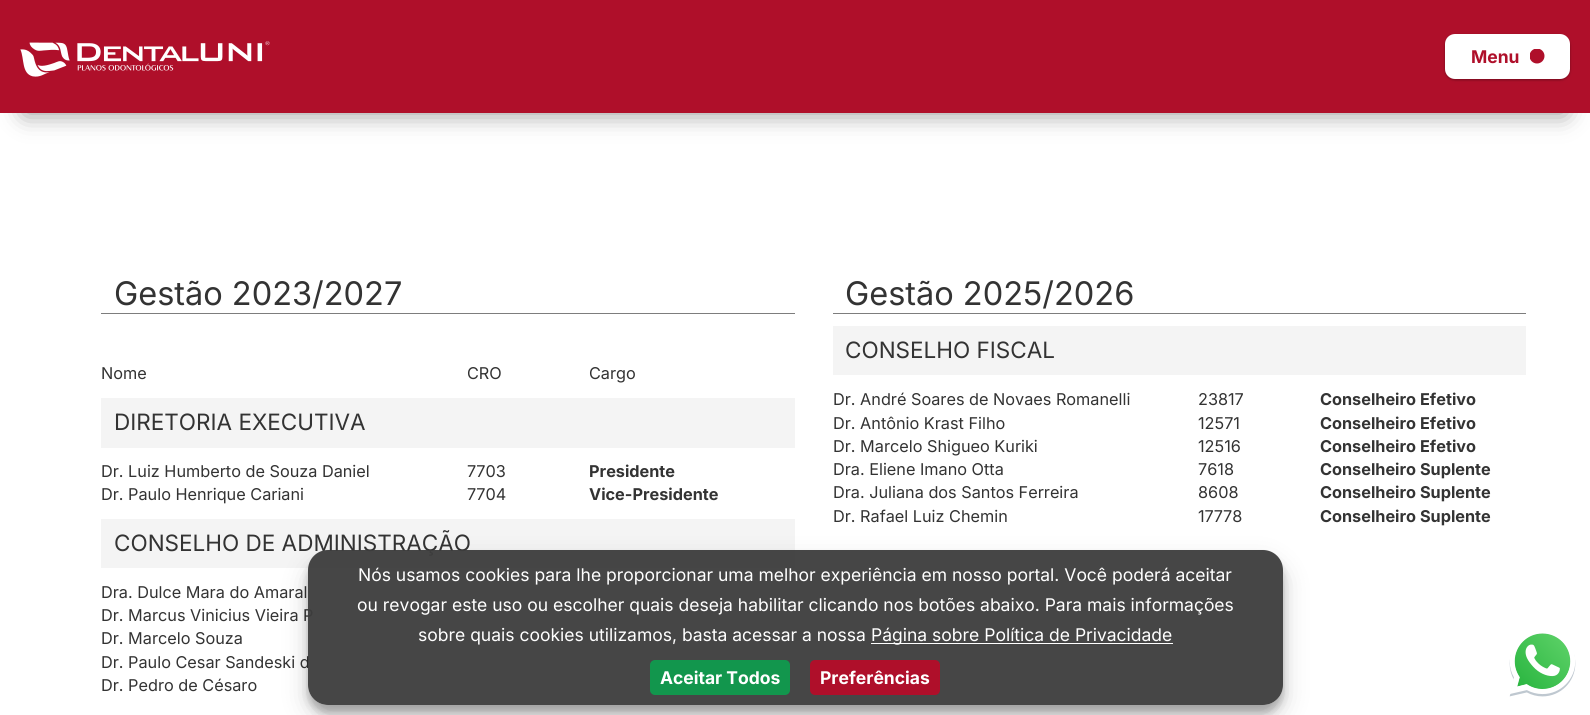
#include <cairo.h>
#include <math.h>
#include <stddef.h>

typedef struct { double x, y; const char *s; } line_t;

static void ink(cairo_t *ctx, unsigned color) {
    cairo_set_source_rgb(ctx, (color >> 16) / 255.0, (color >> 8 & 255) / 255.0, (color & 255) / 255.0);
}

static void round_path(cairo_t *ctx, double x, double y, double w, double h, double r) {
    cairo_new_sub_path(ctx);
    cairo_arc(ctx, x + w - r, y + h - r, r, 0, M_PI / 2);
    cairo_arc(ctx, x + r, y + h - r, r, M_PI / 2, M_PI);
    cairo_arc(ctx, x + r, y + r, r, M_PI, 1.5 * M_PI);
    cairo_arc(ctx, x + w - r, y + r, r, 1.5 * M_PI, 2 * M_PI);
    cairo_close_path(ctx);
}

static void blur_box(cairo_t *ctx, double x, double y, double w, double h, double r, double blur, double alpha) {
    cairo_push_group_with_content(ctx, CAIRO_CONTENT_ALPHA);
    cairo_set_operator(ctx, CAIRO_OPERATOR_SOURCE);
    for (int i = 15; i >= -15 && fmin(w, h) + blur * i / 3 > 0; i -= 2) {
        double e = blur * i / 6;
        cairo_set_source_rgba(ctx, 0, 0, 0, alpha * erfc((i - 1) / 8.5) / 2);
        round_path(ctx, x - e, y - e, w + 2 * e, h + 2 * e, fmax(0, fmin(r + e + blur * .6, fmin(w, h) / 2 + e)));
        cairo_fill(ctx);
    }
    cairo_pattern_t *soft = cairo_pop_group(ctx);
    cairo_mask(ctx, soft);
    cairo_pattern_destroy(soft);
}

static void paste(cairo_t *ctx, const char *path, double x, double y, double w, double h) {
    cairo_surface_t *image = cairo_image_surface_create_from_png(path);
    cairo_save(ctx);
    cairo_set_source_surface(ctx, image, x, y);
    cairo_rectangle(ctx, x, y, w, h);
    cairo_fill(ctx);
    cairo_restore(ctx);
    cairo_surface_destroy(image);
}

int main(void) {
    cairo_surface_t *surface = cairo_image_surface_create(CAIRO_FORMAT_RGB24, 1590, 715);
    cairo_t *ctx = cairo_create(surface);
    cairo_font_options_t *options = cairo_font_options_create();
    cairo_font_options_set_hint_metrics(options, CAIRO_HINT_METRICS_OFF);
    cairo_font_options_set_hint_style(options, CAIRO_HINT_STYLE_NONE);
    cairo_set_font_options(ctx, options);
    cairo_set_miter_limit(ctx, 4);
    ink(ctx, 0xFFFFFF);
    cairo_paint(ctx);
    ink(ctx, 0x000000);
    blur_box(ctx, 25, 50, 1540, 63, 0, 12.5, 0.45);
    ink(ctx, 0xAF0F2A);
    cairo_rectangle(ctx, 0, 0, 1590, 113);
    cairo_fill(ctx);
    paste(ctx, "media/1.png", 20, 41, 250, 36);
    ink(ctx, 0x000000);
    blur_box(ctx, 1445, 35, 125, 45, 10, 1, 0.24);
    blur_box(ctx, 1445, 35, 125, 45, 10, 2, 0.12);
    ink(ctx, 0xFFFFFF);
    round_path(ctx, 1445, 34, 125, 45, 10);
    cairo_fill(ctx);
    cairo_select_font_face(ctx, "Inter", CAIRO_FONT_SLANT_NORMAL, CAIRO_FONT_WEIGHT_BOLD);
    cairo_set_font_size(ctx, 17.5);
    ink(ctx, 0xAF0F2A);
    cairo_move_to(ctx, 1471, 63);
    cairo_show_text(ctx, "Menu");
    cairo_save(ctx);
    cairo_rectangle(ctx, 1530, 49, 15, 15);
    cairo_clip(ctx);
    cairo_arc(ctx, 1537, 56, 7.5, 0, 2 * M_PI);
    cairo_fill(ctx);
    cairo_restore(ctx);
    ink(ctx, 0x7D7D7D);
    cairo_rectangle(ctx, 101, 313, 694, 1);
    cairo_fill(ctx);
    cairo_select_font_face(ctx, "Inter", CAIRO_FONT_SLANT_NORMAL, CAIRO_FONT_WEIGHT_NORMAL);
    cairo_set_font_size(ctx, 32.5);
    ink(ctx, 0x333333);
    cairo_move_to(ctx, 114, 305);
    cairo_show_text(ctx, "Gestão 2023/2027");
    cairo_set_font_size(ctx, 16.25);
    {
        static const line_t items[] = {
            {101, 379, "Nome"},
            {467, 379, "CRO"},
            {589, 379, "Cargo"},
        };
        for (size_t i = 0; i < sizeof items / sizeof *items; i++) {
            cairo_move_to(ctx, items[i].x, items[i].y);
            cairo_show_text(ctx, items[i].s);
        }
    }
    ink(ctx, 0xF4F4F4);
    cairo_rectangle(ctx, 101, 398, 694, 50);
    cairo_fill(ctx);
    cairo_set_font_size(ctx, 22.5);
    ink(ctx, 0x333333);
    cairo_move_to(ctx, 114, 430);
    cairo_show_text(ctx, "DIRETORIA EXECUTIVA");
    cairo_set_font_size(ctx, 16.25);
    cairo_move_to(ctx, 101, 477);
    cairo_show_text(ctx, "Dr. Luiz Humberto de Souza Daniel");
    cairo_move_to(ctx, 467, 477);
    cairo_show_text(ctx, "7703");
    cairo_select_font_face(ctx, "Inter", CAIRO_FONT_SLANT_NORMAL, CAIRO_FONT_WEIGHT_BOLD);
    cairo_move_to(ctx, 589, 477);
    cairo_show_text(ctx, "Presidente");
    cairo_select_font_face(ctx, "Inter", CAIRO_FONT_SLANT_NORMAL, CAIRO_FONT_WEIGHT_NORMAL);
    cairo_move_to(ctx, 101, 500);
    cairo_show_text(ctx, "Dr. Paulo Henrique Cariani");
    cairo_move_to(ctx, 467, 500);
    cairo_show_text(ctx, "7704");
    cairo_select_font_face(ctx, "Inter", CAIRO_FONT_SLANT_NORMAL, CAIRO_FONT_WEIGHT_BOLD);
    cairo_move_to(ctx, 589, 500);
    cairo_show_text(ctx, "Vice-Presidente");
    ink(ctx, 0xF4F4F4);
    cairo_rectangle(ctx, 101, 519, 694, 49);
    cairo_fill(ctx);
    cairo_select_font_face(ctx, "Inter", CAIRO_FONT_SLANT_NORMAL, CAIRO_FONT_WEIGHT_NORMAL);
    cairo_set_font_size(ctx, 22.5);
    ink(ctx, 0x333333);
    cairo_move_to(ctx, 114, 551);
    cairo_show_text(ctx, "CONSELHO DE ADMINISTRAÇÃO");
    cairo_set_font_size(ctx, 16.25);
    {
        static const line_t items[] = {
            {101, 598, "Dra. Dulce Mara do Amaral"},
            {101, 621, "Dr. Marcus Vinicius Vieira P"},
            {101, 644, "Dr. Marcelo Souza"},
            {101, 668, "Dr. Paulo Cesar Sandeski d"},
            {101, 691, "Dr. Pedro de Césaro"},
        };
        for (size_t i = 0; i < sizeof items / sizeof *items; i++) {
            cairo_move_to(ctx, items[i].x, items[i].y);
            cairo_show_text(ctx, items[i].s);
        }
    }
    ink(ctx, 0x7D7D7D);
    cairo_rectangle(ctx, 833, 313, 693, 1);
    cairo_fill(ctx);
    cairo_set_font_size(ctx, 32.5);
    ink(ctx, 0x333333);
    cairo_move_to(ctx, 845, 305);
    cairo_show_text(ctx, "Gestão 2025/2026");
    ink(ctx, 0xF4F4F4);
    cairo_rectangle(ctx, 833, 326, 693, 49);
    cairo_fill(ctx);
    cairo_set_font_size(ctx, 22.5);
    ink(ctx, 0x333333);
    cairo_move_to(ctx, 845, 358);
    cairo_show_text(ctx, "CONSELHO FISCAL");
    cairo_set_font_size(ctx, 16.25);
    cairo_move_to(ctx, 833, 405);
    cairo_show_text(ctx, "Dr. André Soares de Novaes Romanelli");
    cairo_move_to(ctx, 1198, 405);
    cairo_show_text(ctx, "23817");
    cairo_select_font_face(ctx, "Inter", CAIRO_FONT_SLANT_NORMAL, CAIRO_FONT_WEIGHT_BOLD);
    cairo_move_to(ctx, 1320, 405);
    cairo_show_text(ctx, "Conselheiro Efetivo");
    cairo_select_font_face(ctx, "Inter", CAIRO_FONT_SLANT_NORMAL, CAIRO_FONT_WEIGHT_NORMAL);
    cairo_move_to(ctx, 833, 429);
    cairo_show_text(ctx, "Dr. Antônio Krast Filho");
    cairo_move_to(ctx, 1198, 429);
    cairo_show_text(ctx, "12571");
    cairo_select_font_face(ctx, "Inter", CAIRO_FONT_SLANT_NORMAL, CAIRO_FONT_WEIGHT_BOLD);
    cairo_move_to(ctx, 1320, 429);
    cairo_show_text(ctx, "Conselheiro Efetivo");
    cairo_select_font_face(ctx, "Inter", CAIRO_FONT_SLANT_NORMAL, CAIRO_FONT_WEIGHT_NORMAL);
    cairo_move_to(ctx, 833, 452);
    cairo_show_text(ctx, "Dr. Marcelo Shigueo Kuriki");
    cairo_move_to(ctx, 1198, 452);
    cairo_show_text(ctx, "12516");
    cairo_select_font_face(ctx, "Inter", CAIRO_FONT_SLANT_NORMAL, CAIRO_FONT_WEIGHT_BOLD);
    cairo_move_to(ctx, 1320, 452);
    cairo_show_text(ctx, "Conselheiro Efetivo");
    cairo_select_font_face(ctx, "Inter", CAIRO_FONT_SLANT_NORMAL, CAIRO_FONT_WEIGHT_NORMAL);
    cairo_move_to(ctx, 833, 475);
    cairo_show_text(ctx, "Dra. Eliene Imano Otta");
    cairo_move_to(ctx, 1198, 475);
    cairo_show_text(ctx, "7618");
    cairo_select_font_face(ctx, "Inter", CAIRO_FONT_SLANT_NORMAL, CAIRO_FONT_WEIGHT_BOLD);
    cairo_move_to(ctx, 1320, 475);
    cairo_show_text(ctx, "Conselheiro Suplente");
    cairo_select_font_face(ctx, "Inter", CAIRO_FONT_SLANT_NORMAL, CAIRO_FONT_WEIGHT_NORMAL);
    cairo_move_to(ctx, 833, 498);
    cairo_show_text(ctx, "Dra. Juliana dos Santos Ferreira");
    cairo_move_to(ctx, 1198, 498);
    cairo_show_text(ctx, "8608");
    cairo_select_font_face(ctx, "Inter", CAIRO_FONT_SLANT_NORMAL, CAIRO_FONT_WEIGHT_BOLD);
    cairo_move_to(ctx, 1320, 498);
    cairo_show_text(ctx, "Conselheiro Suplente");
    cairo_select_font_face(ctx, "Inter", CAIRO_FONT_SLANT_NORMAL, CAIRO_FONT_WEIGHT_NORMAL);
    cairo_move_to(ctx, 833, 522);
    cairo_show_text(ctx, "Dr. Rafael Luiz Chemin");
    cairo_move_to(ctx, 1198, 522);
    cairo_show_text(ctx, "17778");
    cairo_select_font_face(ctx, "Inter", CAIRO_FONT_SLANT_NORMAL, CAIRO_FONT_WEIGHT_BOLD);
    cairo_move_to(ctx, 1320, 522);
    cairo_show_text(ctx, "Conselheiro Suplente");
    cairo_save(ctx);
    cairo_set_fill_rule(ctx, CAIRO_FILL_RULE_EVEN_ODD);
    cairo_new_path(ctx);
    cairo_move_to(ctx, 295, 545);
    cairo_line_to(ctx, 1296, 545);
    cairo_line_to(ctx, 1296, 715);
    cairo_line_to(ctx, 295, 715);
    cairo_close_path(ctx);
    cairo_move_to(ctx, 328, 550);
    cairo_line_to(ctx, 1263, 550);
    cairo_curve_to(ctx, 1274, 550, 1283, 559, 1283, 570);
    cairo_line_to(ctx, 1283, 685);
    cairo_curve_to(ctx, 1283, 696, 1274, 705, 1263, 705);
    cairo_line_to(ctx, 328, 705);
    cairo_curve_to(ctx, 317, 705, 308, 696, 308, 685);
    cairo_line_to(ctx, 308, 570);
    cairo_curve_to(ctx, 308, 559, 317, 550, 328, 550);
    cairo_close_path(ctx);
    cairo_clip(ctx);
    ink(ctx, 0x000000);
    blur_box(ctx, 308, 558, 975, 155, 20, 4, 0.23);
    cairo_restore(ctx);
    cairo_save(ctx);
    cairo_set_fill_rule(ctx, CAIRO_FILL_RULE_EVEN_ODD);
    cairo_new_path(ctx);
    cairo_move_to(ctx, 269, 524);
    cairo_line_to(ctx, 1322, 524);
    cairo_line_to(ctx, 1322, 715);
    cairo_line_to(ctx, 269, 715);
    cairo_close_path(ctx);
    cairo_move_to(ctx, 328, 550);
    cairo_line_to(ctx, 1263, 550);
    cairo_curve_to(ctx, 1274, 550, 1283, 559, 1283, 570);
    cairo_line_to(ctx, 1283, 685);
    cairo_curve_to(ctx, 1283, 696, 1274, 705, 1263, 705);
    cairo_line_to(ctx, 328, 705);
    cairo_curve_to(ctx, 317, 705, 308, 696, 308, 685);
    cairo_line_to(ctx, 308, 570);
    cairo_curve_to(ctx, 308, 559, 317, 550, 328, 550);
    cairo_close_path(ctx);
    cairo_clip(ctx);
    ink(ctx, 0x000000);
    blur_box(ctx, 308, 563, 975, 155, 20, 12.5, 0.19);
    cairo_restore(ctx);
    cairo_set_source_rgba(ctx, 0.239, 0.239, 0.239, 0.95);
    round_path(ctx, 308, 550, 975, 155, 20);
    cairo_fill(ctx);
    cairo_select_font_face(ctx, "Inter", CAIRO_FONT_SLANT_NORMAL, CAIRO_FONT_WEIGHT_NORMAL);
    cairo_set_font_size(ctx, 17.5);
    ink(ctx, 0xFFFFFF);
    {
        static const line_t items[] = {
            {358, 581, "Nós usamos cookies para lhe proporcionar uma melhor experiência em nosso portal. Você poderá aceitar"},
            {357, 611, "ou revogar este uso ou escolher quais deseja habilitar clicando nos botões abaixo. Para mais informações"},
            {418, 641, "sobre quais cookies utilizamos, basta acessar a nossa"},
        };
        for (size_t i = 0; i < sizeof items / sizeof *items; i++) {
            cairo_move_to(ctx, items[i].x, items[i].y);
            cairo_show_text(ctx, items[i].s);
        }
    }
    cairo_rectangle(ctx, 871, 643, 302, 1);
    cairo_fill(ctx);
    cairo_move_to(ctx, 871, 641);
    cairo_show_text(ctx, "Página sobre Política de Privacidade");
    ink(ctx, 0x12964D);
    round_path(ctx, 650, 660, 140, 35, 5);
    cairo_fill(ctx);
    cairo_select_font_face(ctx, "Inter", CAIRO_FONT_SLANT_NORMAL, CAIRO_FONT_WEIGHT_BOLD);
    ink(ctx, 0xFFFFFF);
    cairo_move_to(ctx, 660, 684);
    cairo_show_text(ctx, "Aceitar Todos");
    ink(ctx, 0xAF0F2A);
    round_path(ctx, 810, 660, 130, 35, 5);
    cairo_fill(ctx);
    ink(ctx, 0xFFFFFF);
    cairo_move_to(ctx, 820, 684);
    cairo_show_text(ctx, "Preferências");
    paste(ctx, "media/2.png", 1509, 633, 67, 64);
    cairo_surface_write_to_png(surface, "image.png");
    cairo_font_options_destroy(options);
    cairo_destroy(ctx);
    cairo_surface_destroy(surface);
    return 0;
}
